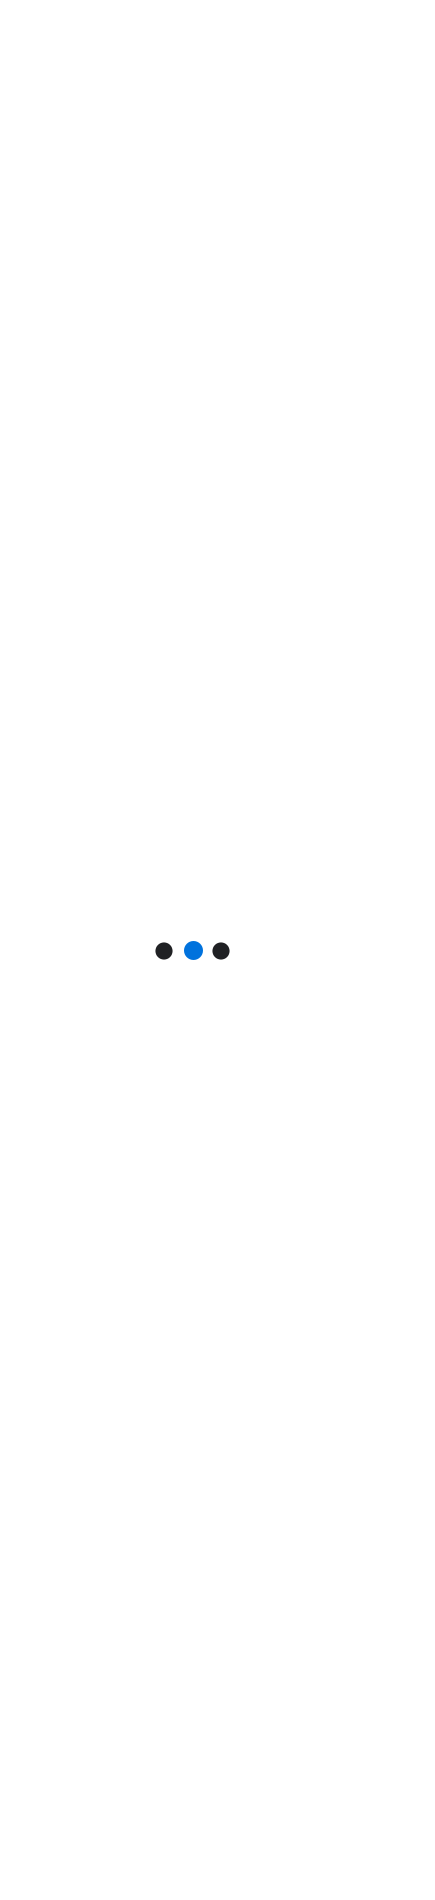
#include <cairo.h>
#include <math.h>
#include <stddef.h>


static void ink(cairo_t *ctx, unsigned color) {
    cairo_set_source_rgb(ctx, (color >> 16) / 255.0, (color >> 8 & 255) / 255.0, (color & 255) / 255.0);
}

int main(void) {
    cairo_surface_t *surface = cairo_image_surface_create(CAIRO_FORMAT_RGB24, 435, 1900);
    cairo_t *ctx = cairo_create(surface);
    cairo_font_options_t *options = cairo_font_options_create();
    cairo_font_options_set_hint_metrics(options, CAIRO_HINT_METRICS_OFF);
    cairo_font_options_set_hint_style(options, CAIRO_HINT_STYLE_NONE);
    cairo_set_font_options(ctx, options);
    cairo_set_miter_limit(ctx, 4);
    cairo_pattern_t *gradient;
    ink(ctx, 0xFFFFFF);
    cairo_paint(ctx);
    gradient = cairo_pattern_create_radial(221, 951, 0, 221, 951, 9);
    cairo_pattern_add_color_stop_rgba(gradient, 0.9, 0.125, 0.129, 0.141, 1);
    cairo_pattern_add_color_stop_rgba(gradient, 1, 1, 1, 1, 1);
    cairo_set_source(ctx, gradient);
    cairo_pattern_destroy(gradient);
    cairo_rectangle(ctx, 212, 942, 18, 18);
    cairo_fill(ctx);
    gradient = cairo_pattern_create_radial(164, 951, 0, 164, 951, 9);
    cairo_pattern_add_color_stop_rgba(gradient, 0.9, 0.125, 0.129, 0.141, 1);
    cairo_pattern_add_color_stop_rgba(gradient, 1, 1, 1, 1, 1);
    cairo_set_source(ctx, gradient);
    cairo_pattern_destroy(gradient);
    cairo_rectangle(ctx, 155, 942, 18, 18);
    cairo_fill(ctx);
    ink(ctx, 0x0072DD);
    cairo_arc(ctx, 193.5, 950.5, 9.5, 0, 2 * M_PI);
    cairo_fill(ctx);
    cairo_surface_write_to_png(surface, "image.png");
    cairo_font_options_destroy(options);
    cairo_destroy(ctx);
    cairo_surface_destroy(surface);
    return 0;
}
